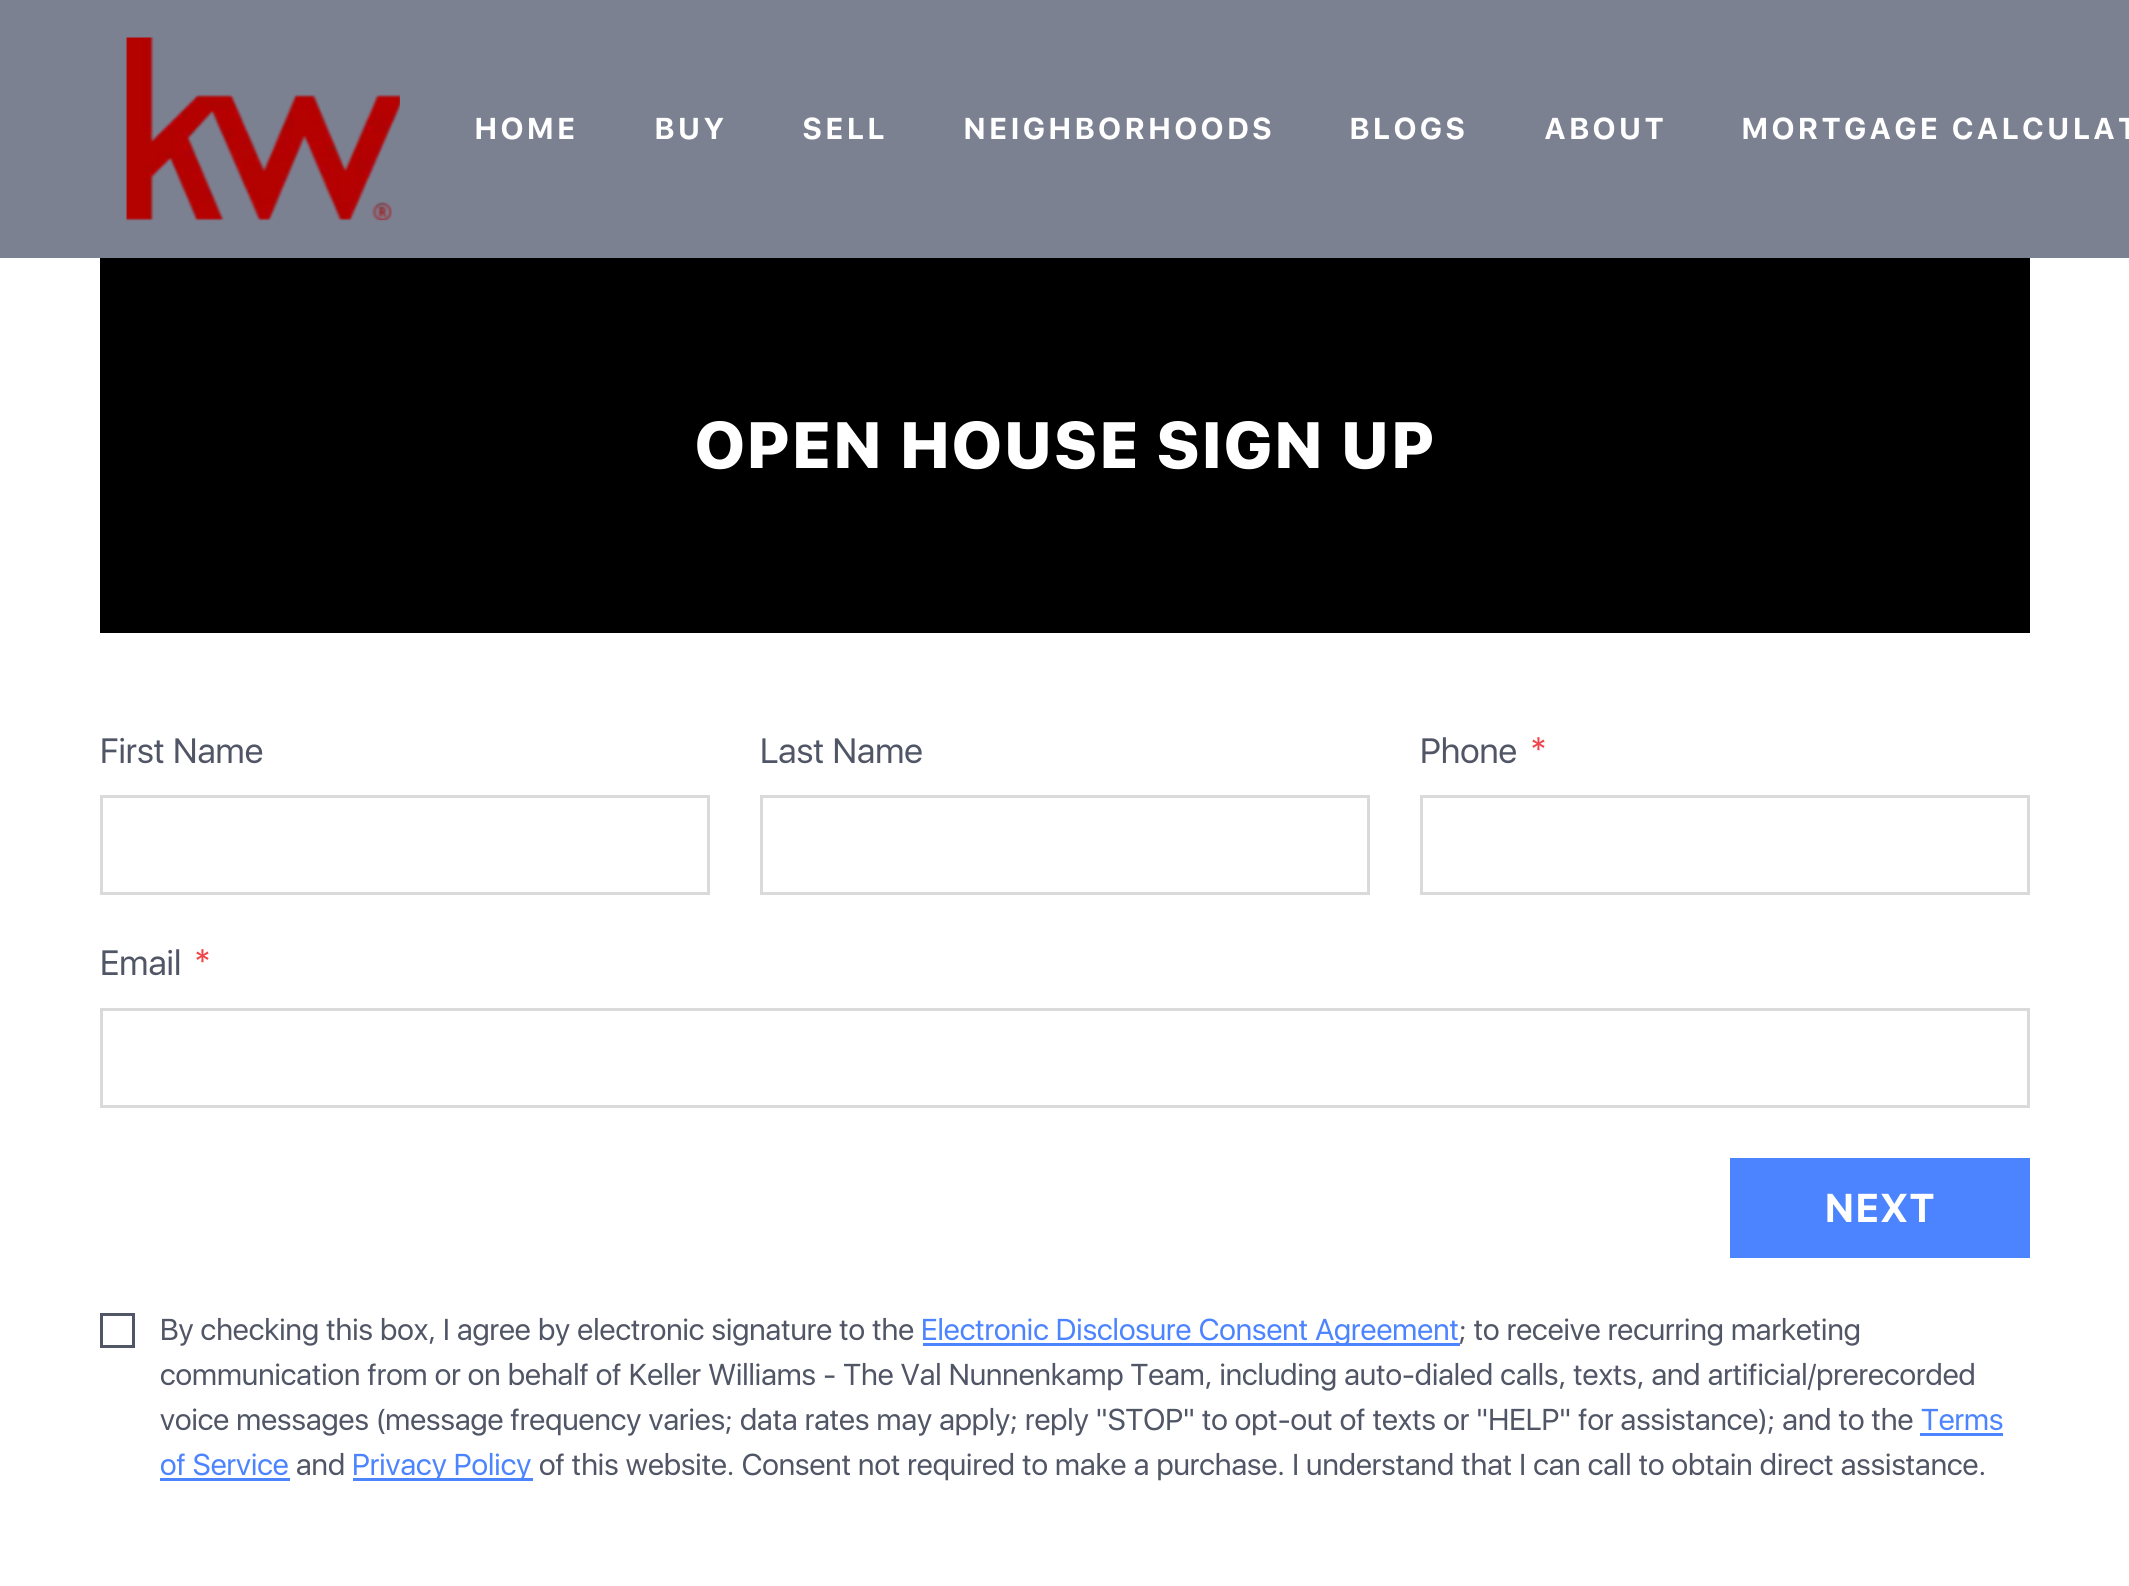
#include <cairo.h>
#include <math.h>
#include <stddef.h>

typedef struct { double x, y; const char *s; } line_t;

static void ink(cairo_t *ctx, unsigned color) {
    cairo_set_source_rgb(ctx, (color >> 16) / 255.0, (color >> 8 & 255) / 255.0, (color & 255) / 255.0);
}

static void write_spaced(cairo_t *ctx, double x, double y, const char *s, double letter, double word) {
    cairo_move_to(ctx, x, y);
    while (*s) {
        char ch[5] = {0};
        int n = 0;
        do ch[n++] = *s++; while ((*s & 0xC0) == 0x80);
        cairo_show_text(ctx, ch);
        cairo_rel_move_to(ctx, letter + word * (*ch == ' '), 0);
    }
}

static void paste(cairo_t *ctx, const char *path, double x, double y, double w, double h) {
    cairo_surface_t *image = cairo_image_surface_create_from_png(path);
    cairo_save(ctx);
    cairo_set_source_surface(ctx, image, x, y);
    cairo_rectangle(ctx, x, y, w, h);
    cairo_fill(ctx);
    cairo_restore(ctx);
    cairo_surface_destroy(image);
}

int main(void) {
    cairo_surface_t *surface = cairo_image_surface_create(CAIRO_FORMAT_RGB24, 2129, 1586);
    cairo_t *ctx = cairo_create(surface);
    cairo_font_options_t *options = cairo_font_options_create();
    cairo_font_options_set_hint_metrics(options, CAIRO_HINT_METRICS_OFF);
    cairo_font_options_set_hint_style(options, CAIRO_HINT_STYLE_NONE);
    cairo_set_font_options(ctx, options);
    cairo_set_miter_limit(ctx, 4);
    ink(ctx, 0xFFFFFF);
    cairo_paint(ctx);
    ink(ctx, 0x7C8192);
    cairo_rectangle(ctx, 0, 0, 2129, 258);
    cairo_fill(ctx);
    paste(ctx, "media/1.png", 126, 37, 274, 184);
    cairo_select_font_face(ctx, "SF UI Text", CAIRO_FONT_SLANT_NORMAL, CAIRO_FONT_WEIGHT_BOLD);
    cairo_set_font_size(ctx, 30);
    ink(ctx, 0xFFFFFF);
    {
        static const line_t items[] = {
            {474, 139, "HOME"},
            {654, 139, "BUY"},
            {802, 139, "SELL"},
            {963, 139, "NEIGHBORHOODS"},
            {1349, 139, "BLOGS"},
            {1544, 139, "ABOUT"},
            {1741, 139, "MORTGAGE CALCULAT"},
        };
        for (size_t i = 0; i < sizeof items / sizeof *items; i++) {
            write_spaced(ctx, items[i].x, items[i].y, items[i].s, 2.75, 0);
        }
    }
    ink(ctx, 0x000000);
    cairo_rectangle(ctx, 100, 258, 1930, 375);
    cairo_fill(ctx);
    cairo_select_font_face(ctx, "SF UI Text Black", CAIRO_FONT_SLANT_NORMAL, CAIRO_FONT_WEIGHT_NORMAL);
    cairo_set_font_size(ctx, 65);
    ink(ctx, 0xFFFFFF);
    cairo_move_to(ctx, 694, 468);
    cairo_show_text(ctx, "OPEN HOUSE SIGN UP");
    cairo_select_font_face(ctx, "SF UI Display", CAIRO_FONT_SLANT_NORMAL, CAIRO_FONT_WEIGHT_NORMAL);
    cairo_set_font_size(ctx, 35);
    ink(ctx, 0x515666);
    cairo_move_to(ctx, 100, 763);
    cairo_show_text(ctx, "First Name");
    cairo_rectangle(ctx, 101.5, 796.5, 607, 97);
    ink(ctx, 0xDADADA);
    cairo_set_line_width(ctx, 3);
    cairo_stroke(ctx);
    ink(ctx, 0x515666);
    cairo_move_to(ctx, 760, 763);
    cairo_show_text(ctx, "Last Name");
    cairo_rectangle(ctx, 761.5, 796.5, 607, 97);
    ink(ctx, 0xDADADA);
    cairo_stroke(ctx);
    ink(ctx, 0x515666);
    cairo_move_to(ctx, 1420, 763);
    cairo_show_text(ctx, "Phone");
    ink(ctx, 0xF0454C);
    cairo_move_to(ctx, 1530, 763);
    cairo_show_text(ctx, "*");
    cairo_rectangle(ctx, 1421.5, 796.5, 607, 97);
    ink(ctx, 0xDADADA);
    cairo_stroke(ctx);
    ink(ctx, 0x515666);
    cairo_move_to(ctx, 100, 975);
    cairo_show_text(ctx, "Email");
    ink(ctx, 0xF0454C);
    cairo_move_to(ctx, 194, 975);
    cairo_show_text(ctx, "*");
    cairo_rectangle(ctx, 101.5, 1009.5, 1927, 97);
    ink(ctx, 0xDADADA);
    cairo_stroke(ctx);
    ink(ctx, 0x4C84FF);
    cairo_rectangle(ctx, 1730, 1158, 300, 100);
    cairo_fill(ctx);
    cairo_select_font_face(ctx, "SF UI Text", CAIRO_FONT_SLANT_NORMAL, CAIRO_FONT_WEIGHT_BOLD);
    cairo_set_font_size(ctx, 40);
    ink(ctx, 0xFFFFFF);
    cairo_move_to(ctx, 1824, 1222);
    cairo_show_text(ctx, "NEXT");
    cairo_rectangle(ctx, 101.5, 1314.5, 32, 32);
    ink(ctx, 0x515666);
    cairo_stroke(ctx);
    cairo_select_font_face(ctx, "SF UI Display", CAIRO_FONT_SLANT_NORMAL, CAIRO_FONT_WEIGHT_NORMAL);
    cairo_set_font_size(ctx, 30);
    cairo_move_to(ctx, 160, 1340);
    cairo_show_text(ctx, "By checking this box, I agree by electronic signature to the");
    ink(ctx, 0x4C84FF);
    cairo_rectangle(ctx, 923, 1343, 537, 3);
    cairo_fill(ctx);
    cairo_move_to(ctx, 921, 1340);
    cairo_show_text(ctx, "Electronic Disclosure Consent Agreement");
    ink(ctx, 0x515666);
    {
        static const line_t items[] = {
            {1459, 1340, "; to receive recurring marketing"},
            {160, 1385, "communication from or on behalf of Keller Williams - The Val Nunnenkamp Team, including auto-dialed calls, texts, and artificial/prerecorded"},
            {160, 1430, "voice messages (message frequency varies; data rates may apply; reply \"STOP\" to opt-out of texts or \"HELP\" for assistance); and to the"},
        };
        for (size_t i = 0; i < sizeof items / sizeof *items; i++) {
            cairo_move_to(ctx, items[i].x, items[i].y);
            cairo_show_text(ctx, items[i].s);
        }
    }
    ink(ctx, 0x4C84FF);
    cairo_move_to(ctx, 1921, 1430);
    cairo_show_text(ctx, "Terms");
    cairo_rectangle(ctx, 1920, 1433, 83, 3);
    cairo_fill(ctx);
    cairo_move_to(ctx, 160, 1475);
    cairo_show_text(ctx, "of Service");
    cairo_rectangle(ctx, 160, 1478, 130, 3);
    cairo_fill(ctx);
    ink(ctx, 0x515666);
    cairo_move_to(ctx, 296, 1475);
    cairo_show_text(ctx, "and");
    ink(ctx, 0x4C84FF);
    cairo_rectangle(ctx, 353, 1478, 180, 3);
    cairo_fill(ctx);
    cairo_move_to(ctx, 352, 1475);
    cairo_show_text(ctx, "Privacy Policy");
    ink(ctx, 0x515666);
    cairo_move_to(ctx, 539, 1475);
    cairo_show_text(ctx, "of this website. Consent not required to make a purchase. I understand that I can call to obtain direct assistance.");
    cairo_surface_write_to_png(surface, "image.png");
    cairo_font_options_destroy(options);
    cairo_destroy(ctx);
    cairo_surface_destroy(surface);
    return 0;
}
